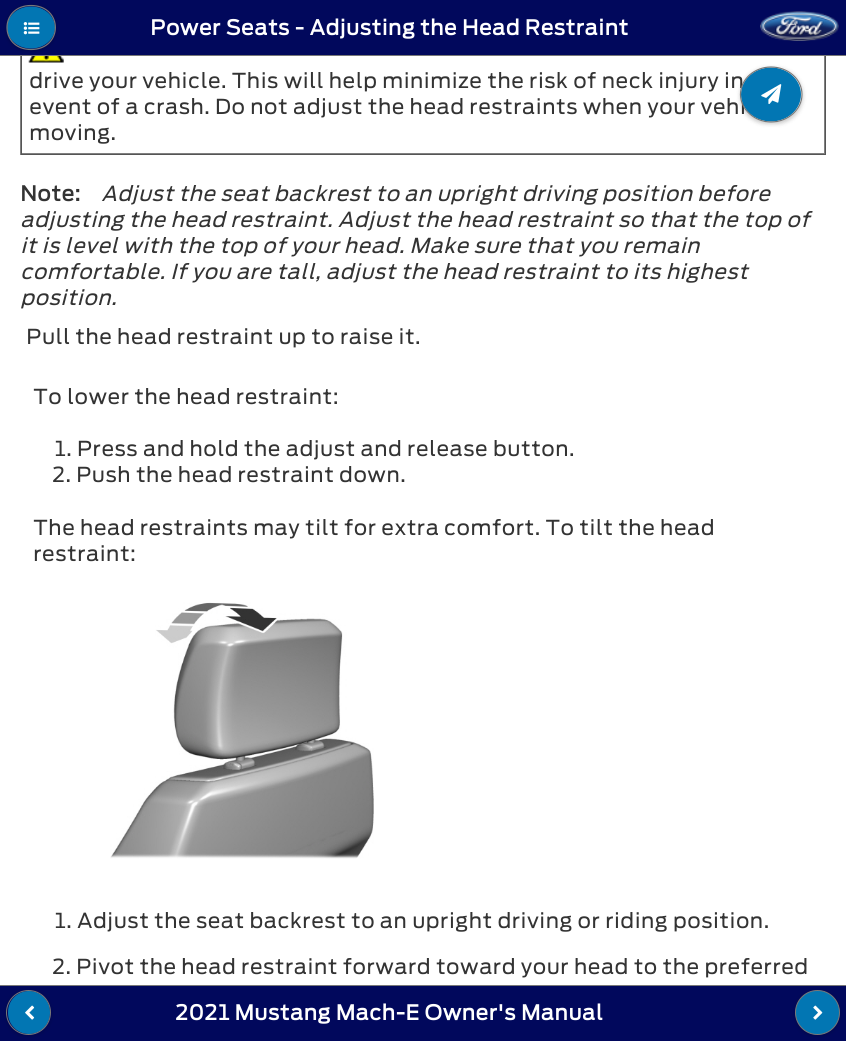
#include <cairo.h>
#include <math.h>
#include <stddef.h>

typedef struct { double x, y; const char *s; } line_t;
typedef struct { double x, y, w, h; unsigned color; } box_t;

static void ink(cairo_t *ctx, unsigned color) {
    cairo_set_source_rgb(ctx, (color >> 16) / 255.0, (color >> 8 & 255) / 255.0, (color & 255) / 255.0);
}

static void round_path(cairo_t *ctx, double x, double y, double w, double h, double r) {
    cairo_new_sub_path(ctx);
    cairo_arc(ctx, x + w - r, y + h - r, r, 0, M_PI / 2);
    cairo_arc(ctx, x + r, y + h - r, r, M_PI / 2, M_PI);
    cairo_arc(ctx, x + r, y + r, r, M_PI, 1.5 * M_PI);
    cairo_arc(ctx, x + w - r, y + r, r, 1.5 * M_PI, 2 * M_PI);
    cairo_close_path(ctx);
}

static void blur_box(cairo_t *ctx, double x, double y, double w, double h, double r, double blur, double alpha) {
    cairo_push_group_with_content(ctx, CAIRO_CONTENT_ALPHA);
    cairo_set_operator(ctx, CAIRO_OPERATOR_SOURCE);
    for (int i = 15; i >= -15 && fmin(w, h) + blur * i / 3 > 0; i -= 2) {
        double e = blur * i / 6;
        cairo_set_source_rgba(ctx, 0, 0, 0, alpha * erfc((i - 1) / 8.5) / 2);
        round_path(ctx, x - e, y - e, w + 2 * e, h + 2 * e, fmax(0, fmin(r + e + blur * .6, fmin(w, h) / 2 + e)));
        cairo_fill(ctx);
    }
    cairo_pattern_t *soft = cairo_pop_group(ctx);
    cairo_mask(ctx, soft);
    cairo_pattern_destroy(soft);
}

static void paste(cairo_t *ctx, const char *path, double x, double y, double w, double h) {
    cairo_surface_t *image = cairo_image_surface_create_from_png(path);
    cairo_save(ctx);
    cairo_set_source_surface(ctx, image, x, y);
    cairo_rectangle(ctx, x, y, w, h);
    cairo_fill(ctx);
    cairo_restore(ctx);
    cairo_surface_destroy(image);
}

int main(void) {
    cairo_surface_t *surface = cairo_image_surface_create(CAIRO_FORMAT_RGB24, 846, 1041);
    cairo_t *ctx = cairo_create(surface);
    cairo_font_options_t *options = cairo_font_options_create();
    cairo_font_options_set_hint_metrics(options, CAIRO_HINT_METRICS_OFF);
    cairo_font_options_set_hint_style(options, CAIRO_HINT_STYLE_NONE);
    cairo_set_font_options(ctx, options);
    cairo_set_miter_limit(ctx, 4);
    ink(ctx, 0xFFFFFF);
    cairo_paint(ctx);
    {
        static const box_t items[] = {
            {0, 0, 846, 55, 0x01085C},
            {0, 55, 846, 1, 0x787878},
            {825, 56, 1, 99, 0x555555},
            {20, 154, 806, 1, 0x555555},
            {20, 56, 1, 99, 0x808080},
            {824, 56, 1, 98, 0x808080},
            {21, 153, 804, 1, 0x808080},
            {21, 56, 1, 98, 0x555555},
        };
        for (size_t i = 0; i < sizeof items / sizeof *items; i++) {
            ink(ctx, items[i].color);
            cairo_rectangle(ctx, items[i].x, items[i].y, items[i].w, items[i].h);
            cairo_fill(ctx);
        }
    }
    paste(ctx, "media/3.png", 28, 56, 36, 7);
    cairo_save(ctx);
    cairo_set_fill_rule(ctx, CAIRO_FILL_RULE_EVEN_ODD);
    cairo_new_path(ctx);
    cairo_move_to(ctx, 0, 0);
    cairo_line_to(ctx, 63, 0);
    cairo_line_to(ctx, 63, 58);
    cairo_line_to(ctx, 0, 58);
    cairo_close_path(ctx);
    cairo_move_to(ctx, 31, 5);
    cairo_curve_to(ctx, 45, 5, 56, 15, 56, 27.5);
    cairo_curve_to(ctx, 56, 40, 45, 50, 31, 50);
    cairo_curve_to(ctx, 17.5, 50, 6, 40, 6, 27.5);
    cairo_curve_to(ctx, 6, 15, 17.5, 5, 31, 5);
    cairo_close_path(ctx);
    cairo_clip(ctx);
    ink(ctx, 0x000000);
    blur_box(ctx, 6, 6, 50, 45, 22.5, 2, 0.2);
    cairo_restore(ctx);
    ink(ctx, 0x0276B3);
    cairo_new_path(ctx);
    cairo_move_to(ctx, 31, 6.5);
    cairo_curve_to(ctx, 44.5, 6.5, 55, 16, 55, 27.5);
    cairo_curve_to(ctx, 55, 39, 44.5, 48.5, 31, 48.5);
    cairo_curve_to(ctx, 17.5, 48.5, 7, 39, 7, 27.5);
    cairo_curve_to(ctx, 7, 16, 17.5, 6.5, 31, 6.5);
    cairo_close_path(ctx);
    cairo_fill(ctx);
    cairo_new_path(ctx);
    cairo_move_to(ctx, 31, 5.5);
    cairo_curve_to(ctx, 63.5, 5.5, 63.5, 49.5, 31, 49.5);
    cairo_curve_to(ctx, -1, 49.5, -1, 5.5, 31, 5.5);
    cairo_close_path(ctx);
    ink(ctx, 0x787878);
    cairo_set_line_width(ctx, 1.2);
    cairo_stroke(ctx);
    paste(ctx, "media/1.png", 23, 22, 17, 13);
    cairo_select_font_face(ctx, "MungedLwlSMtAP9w", CAIRO_FONT_SLANT_NORMAL, CAIRO_FONT_WEIGHT_BOLD);
    cairo_set_font_size(ctx, 20);
    ink(ctx, 0xFFFFFF);
    cairo_move_to(ctx, 150, 35);
    cairo_show_text(ctx, "Power Seats - Adjusting the Head Restraint");
    paste(ctx, "media/2.png", 760, 11, 79, 30);
    cairo_select_font_face(ctx, "MungedLwlSMtAP9w", CAIRO_FONT_SLANT_NORMAL, CAIRO_FONT_WEIGHT_NORMAL);
    ink(ctx, 0x333333);
    {
        static const line_t items[] = {
            {29, 88, "drive your vehicle. This will help minimize the risk of neck injury in"},
            {29, 114, "event of a crash. Do not adjust the head restraints when your vehi"},
            {29, 140, "moving."},
        };
        for (size_t i = 0; i < sizeof items / sizeof *items; i++) {
            cairo_move_to(ctx, items[i].x, items[i].y);
            cairo_show_text(ctx, items[i].s);
        }
    }
    cairo_save(ctx);
    cairo_set_fill_rule(ctx, CAIRO_FILL_RULE_EVEN_ODD);
    cairo_new_path(ctx);
    cairo_move_to(ctx, 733, 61);
    cairo_line_to(ctx, 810, 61);
    cairo_line_to(ctx, 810, 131);
    cairo_line_to(ctx, 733, 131);
    cairo_close_path(ctx);
    cairo_move_to(ctx, 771, 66);
    cairo_curve_to(ctx, 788.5, 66, 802.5, 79, 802.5, 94.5);
    cairo_curve_to(ctx, 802.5, 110, 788.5, 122.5, 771, 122.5);
    cairo_curve_to(ctx, 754, 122.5, 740, 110, 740, 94.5);
    cairo_curve_to(ctx, 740, 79, 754, 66, 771, 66);
    cairo_close_path(ctx);
    cairo_clip(ctx);
    ink(ctx, 0x000000);
    blur_box(ctx, 740, 68, 63, 56, 28, 2, 0.2);
    cairo_restore(ctx);
    ink(ctx, 0x0276B3);
    cairo_new_path(ctx);
    cairo_move_to(ctx, 771, 67.5);
    cairo_curve_to(ctx, 787.5, 67.5, 801, 79.5, 801, 94.5);
    cairo_curve_to(ctx, 801, 109.5, 787.5, 121.5, 771, 121.5);
    cairo_curve_to(ctx, 754.5, 121.5, 741, 109.5, 741, 94.5);
    cairo_curve_to(ctx, 741, 79.5, 754.5, 67.5, 771, 67.5);
    cairo_close_path(ctx);
    cairo_fill(ctx);
    cairo_new_path(ctx);
    cairo_move_to(ctx, 771, 67);
    cairo_curve_to(ctx, 788, 67, 802, 79, 802, 94.5);
    cairo_curve_to(ctx, 802, 109.5, 788, 122, 771, 122);
    cairo_curve_to(ctx, 754.5, 122, 740.5, 109.5, 740.5, 94.5);
    cairo_curve_to(ctx, 740.5, 79, 754.5, 67, 771, 67);
    cairo_close_path(ctx);
    ink(ctx, 0x787878);
    cairo_stroke(ctx);
    paste(ctx, "media/4.png", 761, 84, 21, 20);
    cairo_select_font_face(ctx, "MungedLwlSMtAP9w", CAIRO_FONT_SLANT_NORMAL, CAIRO_FONT_WEIGHT_BOLD);
    ink(ctx, 0x333333);
    cairo_move_to(ctx, 20, 201);
    cairo_show_text(ctx, "Note:");
    cairo_select_font_face(ctx, "MungedLwlSMtAP9w", CAIRO_FONT_SLANT_ITALIC, CAIRO_FONT_WEIGHT_NORMAL);
    {
        static const line_t items[] = {
            {101, 201, "Adjust the seat backrest to an upright driving position before"},
            {20, 227, "adjusting the head restraint. Adjust the head restraint so that the top of"},
            {20, 253, "it is level with the top of your head. Make sure that you remain"},
            {20, 279, "comfortable. If you are tall, adjust the head restraint to its highest"},
            {20, 305, "position."},
        };
        for (size_t i = 0; i < sizeof items / sizeof *items; i++) {
            cairo_move_to(ctx, items[i].x, items[i].y);
            cairo_show_text(ctx, items[i].s);
        }
    }
    cairo_select_font_face(ctx, "MungedLwlSMtAP9w", CAIRO_FONT_SLANT_NORMAL, CAIRO_FONT_WEIGHT_NORMAL);
    {
        static const line_t items[] = {
            {26, 344, "Pull the head restraint up to raise it."},
            {33, 404, "To lower the head restraint:"},
            {54, 456, "1. Press and hold the adjust and release button."},
            {52, 482, "2. Push the head restraint down."},
            {33, 535, "The head restraints may tilt for extra comfort. To tilt the head"},
            {33, 561, "restraint:"},
        };
        for (size_t i = 0; i < sizeof items / sizeof *items; i++) {
            cairo_move_to(ctx, items[i].x, items[i].y);
            cairo_show_text(ctx, items[i].s);
        }
    }
    paste(ctx, "media/5.png", 110, 602, 264, 257);
    cairo_move_to(ctx, 54, 928);
    cairo_show_text(ctx, "1. Adjust the seat backrest to an upright driving or riding position.");
    cairo_move_to(ctx, 52, 974);
    cairo_show_text(ctx, "2. Pivot the head restraint forward toward your head to the preferred");
    ink(ctx, 0x01085C);
    cairo_rectangle(ctx, 0, 986, 846, 55);
    cairo_fill(ctx);
    ink(ctx, 0x787878);
    cairo_rectangle(ctx, 0, 985, 846, 1);
    cairo_fill(ctx);
    cairo_save(ctx);
    cairo_set_fill_rule(ctx, CAIRO_FILL_RULE_EVEN_ODD);
    cairo_new_path(ctx);
    cairo_move_to(ctx, 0, 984);
    cairo_line_to(ctx, 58, 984);
    cairo_line_to(ctx, 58, 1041);
    cairo_line_to(ctx, 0, 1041);
    cairo_close_path(ctx);
    cairo_move_to(ctx, 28.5, 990);
    cairo_curve_to(ctx, 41, 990, 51, 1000, 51, 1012.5);
    cairo_curve_to(ctx, 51, 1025, 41, 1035, 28.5, 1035);
    cairo_curve_to(ctx, 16, 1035, 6, 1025, 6, 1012.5);
    cairo_curve_to(ctx, 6, 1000, 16, 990, 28.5, 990);
    cairo_close_path(ctx);
    cairo_clip(ctx);
    ink(ctx, 0x000000);
    blur_box(ctx, 6, 991, 45, 45, 22.5, 2, 0.2);
    cairo_restore(ctx);
    ink(ctx, 0x0276B3);
    round_path(ctx, 8, 991, 42, 43, 21);
    cairo_fill(ctx);
    cairo_arc(ctx, 28.5, 1012.5, 22, 0, 2 * M_PI);
    ink(ctx, 0x787878);
    cairo_set_line_width(ctx, 1);
    cairo_stroke(ctx);
    paste(ctx, "media/6.png", 25, 1005, 10, 15);
    cairo_select_font_face(ctx, "MungedLwlSMtAP9w", CAIRO_FONT_SLANT_NORMAL, CAIRO_FONT_WEIGHT_BOLD);
    ink(ctx, 0xFFFFFF);
    cairo_move_to(ctx, 175, 1020);
    cairo_show_text(ctx, "2021 Mustang Mach-E Owner's Manual");
    ink(ctx, 0x000000);
    blur_box(ctx, 795, 991, 45, 45, 22.5, 2, 0.2);
    ink(ctx, 0x0276B3);
    cairo_arc(ctx, 817.5, 1012.5, 22, 0, 2 * M_PI);
    cairo_fill_preserve(ctx);
    ink(ctx, 0x787878);
    cairo_stroke(ctx);
    paste(ctx, "media/7.png", 813, 1005, 10, 15);
    cairo_surface_write_to_png(surface, "image.png");
    cairo_font_options_destroy(options);
    cairo_destroy(ctx);
    cairo_surface_destroy(surface);
    return 0;
}
